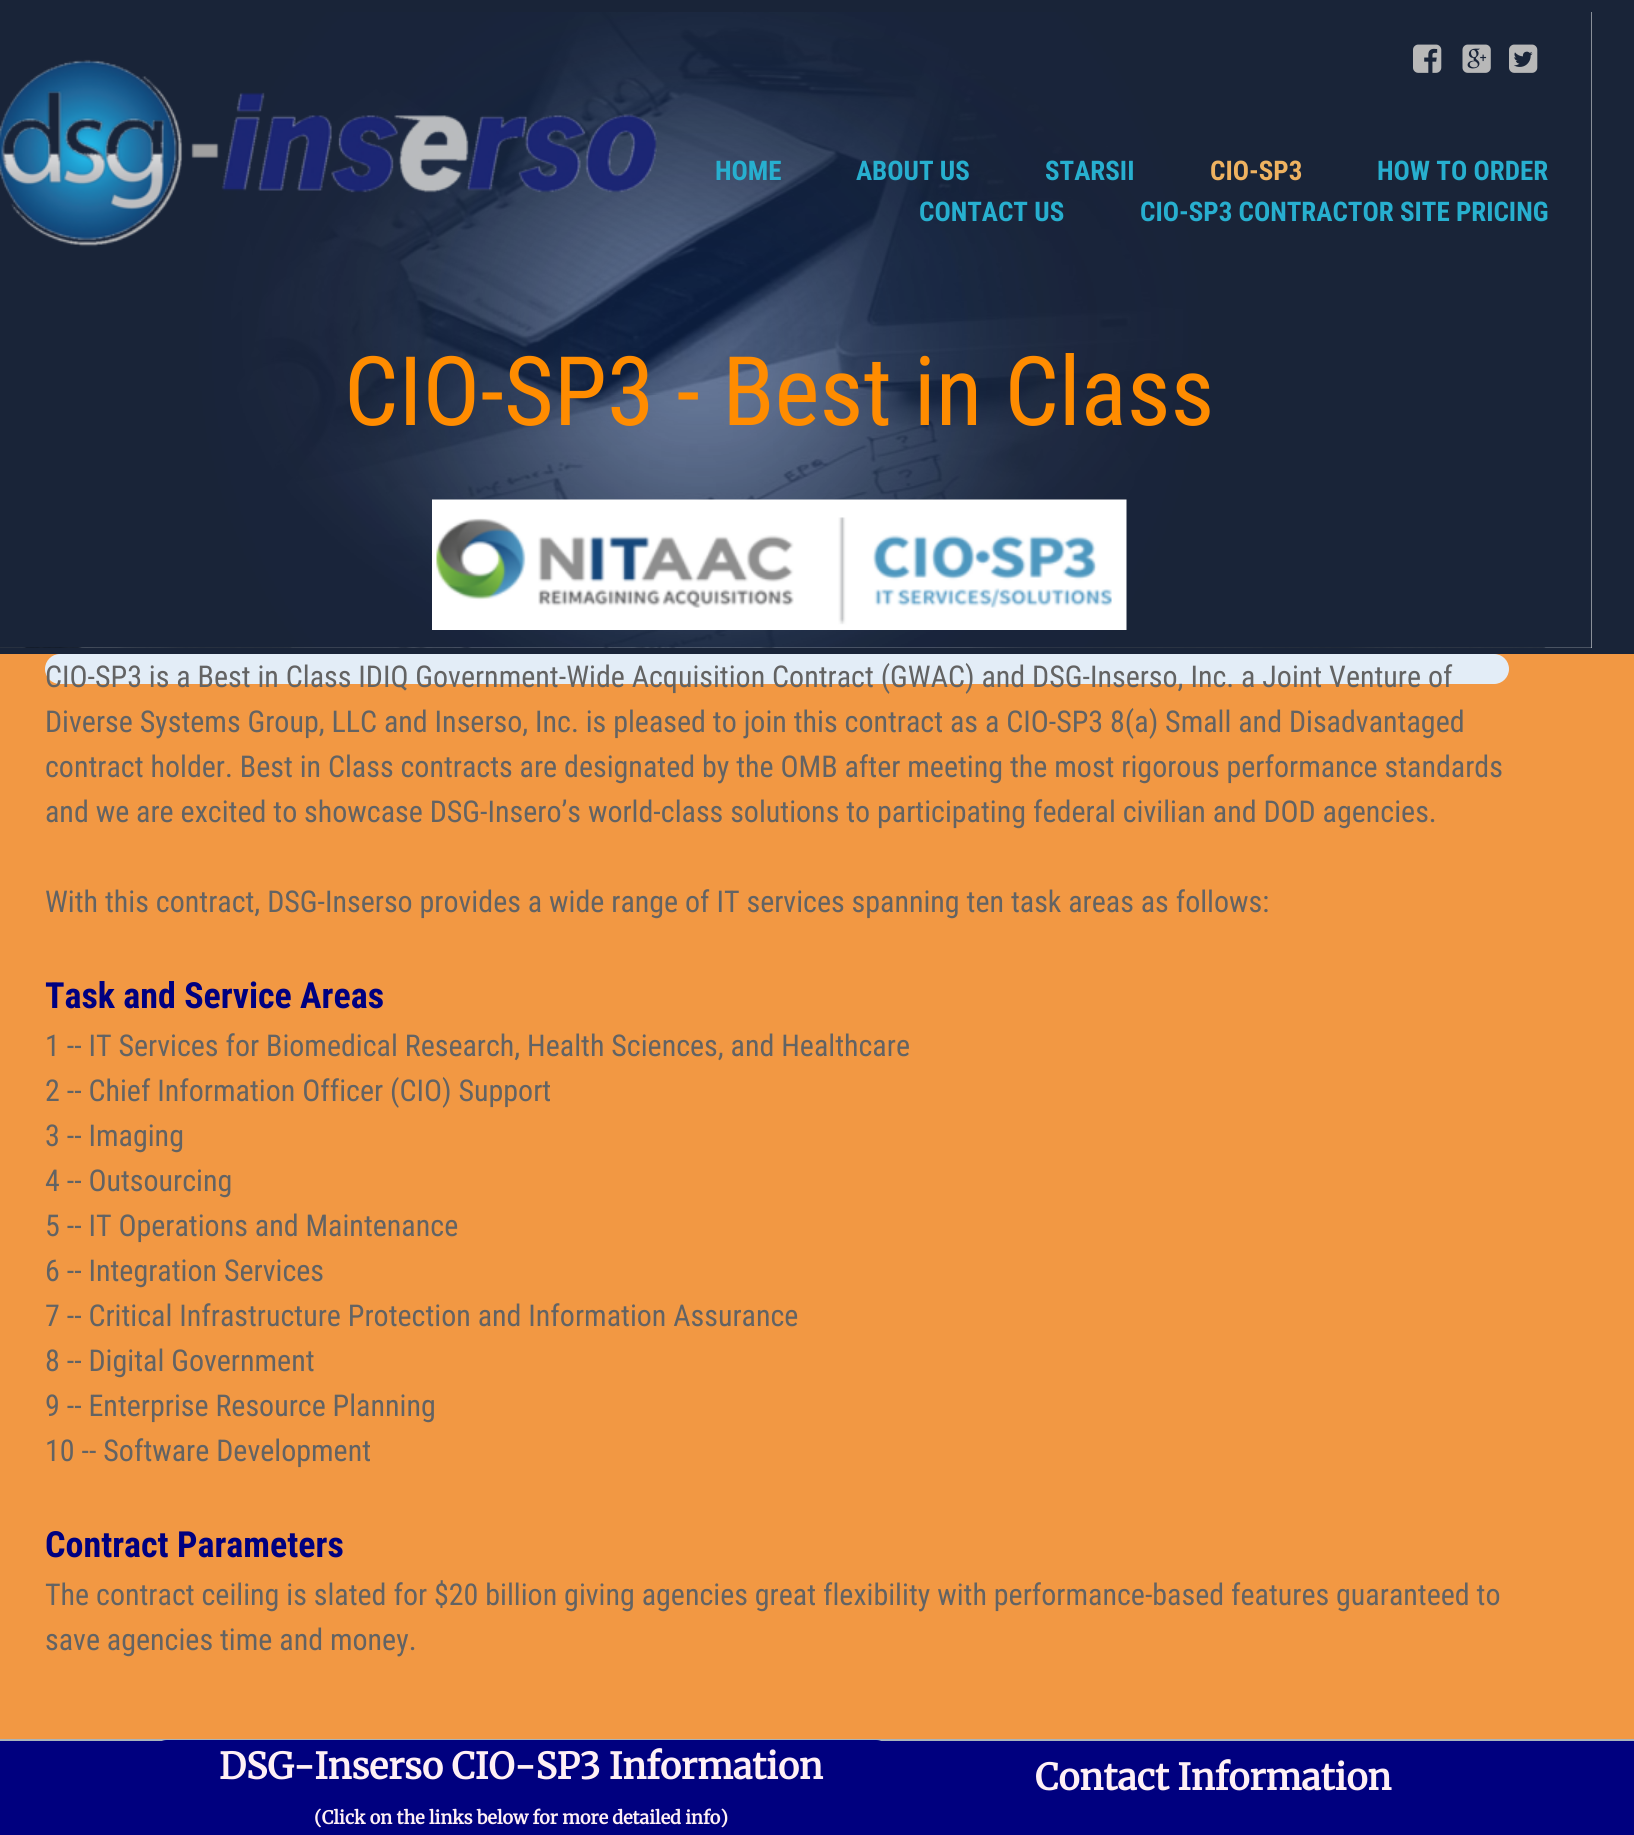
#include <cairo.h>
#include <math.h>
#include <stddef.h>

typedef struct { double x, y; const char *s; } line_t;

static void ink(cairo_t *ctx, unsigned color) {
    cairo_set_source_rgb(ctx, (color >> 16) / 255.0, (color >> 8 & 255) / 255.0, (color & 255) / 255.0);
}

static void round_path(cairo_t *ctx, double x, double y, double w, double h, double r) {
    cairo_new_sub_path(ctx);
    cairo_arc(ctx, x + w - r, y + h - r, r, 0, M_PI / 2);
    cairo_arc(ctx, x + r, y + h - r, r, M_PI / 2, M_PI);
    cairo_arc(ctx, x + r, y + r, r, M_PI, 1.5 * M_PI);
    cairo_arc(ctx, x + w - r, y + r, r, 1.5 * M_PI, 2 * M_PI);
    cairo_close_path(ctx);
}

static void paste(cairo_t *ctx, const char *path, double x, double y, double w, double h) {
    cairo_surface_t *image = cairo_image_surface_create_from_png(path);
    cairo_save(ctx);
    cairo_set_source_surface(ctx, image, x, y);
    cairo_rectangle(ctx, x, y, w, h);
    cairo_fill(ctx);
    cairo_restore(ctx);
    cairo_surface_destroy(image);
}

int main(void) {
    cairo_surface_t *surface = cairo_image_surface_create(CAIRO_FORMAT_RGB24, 1634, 1835);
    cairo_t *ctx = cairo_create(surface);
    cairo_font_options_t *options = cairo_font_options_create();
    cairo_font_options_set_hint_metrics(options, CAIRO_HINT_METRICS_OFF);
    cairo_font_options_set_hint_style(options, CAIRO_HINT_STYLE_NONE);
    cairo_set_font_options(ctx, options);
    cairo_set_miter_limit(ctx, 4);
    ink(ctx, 0xF29843);
    cairo_paint(ctx);
    ink(ctx, 0x192438);
    cairo_rectangle(ctx, 0, 0, 1634, 654);
    cairo_fill(ctx);
    paste(ctx, "media/1.png", 0, 12, 1592, 636);
    paste(ctx, "media/2.png", 0, 12, 1592, 636);
    paste(ctx, "media/3.png", 0, 59, 657, 188);
    paste(ctx, "media/4.png", 1413, 44, 29, 29);
    paste(ctx, "media/5.png", 1462, 44, 29, 29);
    paste(ctx, "media/6.png", 1509, 44, 29, 29);
    cairo_select_font_face(ctx, "Roboto Condensed", CAIRO_FONT_SLANT_NORMAL, CAIRO_FONT_WEIGHT_BOLD);
    cairo_set_font_size(ctx, 27);
    ink(ctx, 0x27AFCF);
    {
        static const line_t items[] = {
            {715, 180, "HOME"},
            {856, 180, "ABOUT US"},
            {1045, 180, "STARSII"},
        };
        for (size_t i = 0; i < sizeof items / sizeof *items; i++) {
            cairo_move_to(ctx, items[i].x, items[i].y);
            cairo_show_text(ctx, items[i].s);
        }
    }
    ink(ctx, 0xEFB260);
    cairo_move_to(ctx, 1210, 180);
    cairo_show_text(ctx, "CIO-SP3");
    ink(ctx, 0x27AFCF);
    {
        static const line_t items[] = {
            {1377, 180, "HOW TO ORDER"},
            {919, 221, "CONTACT US"},
            {1140, 221, "CIO-SP3 CONTRACTOR SITE PRICING"},
        };
        for (size_t i = 0; i < sizeof items / sizeof *items; i++) {
            cairo_move_to(ctx, items[i].x, items[i].y);
            cairo_show_text(ctx, items[i].s);
        }
    }
    cairo_select_font_face(ctx, "Roboto Condensed", CAIRO_FONT_SLANT_NORMAL, CAIRO_FONT_WEIGHT_NORMAL);
    cairo_set_font_size(ctx, 96);
    ink(ctx, 0xFF8C00);
    cairo_move_to(ctx, 344, 425);
    cairo_show_text(ctx, "CIO-SP3 - Best in Class");
    paste(ctx, "media/7.png", 432, 499, 695, 131);
    ink(ctx, 0xE3EDF7);
    round_path(ctx, 45, 654, 1464, 30, 15);
    cairo_fill(ctx);
    cairo_set_font_size(ctx, 30);
    ink(ctx, 0x636363);
    {
        static const line_t items[] = {
            {45, 687, "CIO-SP3 is a Best in Class IDIQ Government-Wide Acquisition Contract (GWAC) and DSG-Inserso, Inc. a Joint Venture of"},
            {45, 732, "Diverse Systems Group, LLC and Inserso, Inc. is pleased to join this contract as a CIO-SP3 8(a) Small and Disadvantaged"},
            {45, 777, "contract holder. Best in Class contracts are designated by the OMB after meeting the most rigorous performance standards"},
            {45, 822, "and we are excited to showcase DSG-Insero’s world-class solutions to participating federal civilian and DOD agencies."},
            {45, 912, "With this contract, DSG-Inserso provides a wide range of IT services spanning ten task areas as follows:"},
        };
        for (size_t i = 0; i < sizeof items / sizeof *items; i++) {
            cairo_move_to(ctx, items[i].x, items[i].y);
            cairo_show_text(ctx, items[i].s);
        }
    }
    cairo_select_font_face(ctx, "Roboto Condensed", CAIRO_FONT_SLANT_NORMAL, CAIRO_FONT_WEIGHT_BOLD);
    cairo_set_font_size(ctx, 36);
    ink(ctx, 0x000080);
    cairo_move_to(ctx, 45, 1008);
    cairo_show_text(ctx, "Task and Service Areas");
    cairo_select_font_face(ctx, "Roboto Condensed", CAIRO_FONT_SLANT_NORMAL, CAIRO_FONT_WEIGHT_NORMAL);
    cairo_set_font_size(ctx, 30);
    ink(ctx, 0x636363);
    {
        static const line_t items[] = {
            {45, 1056, "1 -- IT Services for Biomedical Research, Health Sciences, and Healthcare"},
            {45, 1101, "2 -- Chief Information Officer (CIO) Support"},
            {45, 1146, "3 -- Imaging"},
            {45, 1191, "4 -- Outsourcing"},
            {45, 1236, "5 -- IT Operations and Maintenance"},
            {45, 1281, "6 -- Integration Services"},
            {45, 1326, "7 -- Critical Infrastructure Protection and Information Assurance"},
            {45, 1371, "8 -- Digital Government"},
            {45, 1416, "9 -- Enterprise Resource Planning"},
            {45, 1461, "10 -- Software Development"},
        };
        for (size_t i = 0; i < sizeof items / sizeof *items; i++) {
            cairo_move_to(ctx, items[i].x, items[i].y);
            cairo_show_text(ctx, items[i].s);
        }
    }
    cairo_select_font_face(ctx, "Roboto Condensed", CAIRO_FONT_SLANT_NORMAL, CAIRO_FONT_WEIGHT_BOLD);
    cairo_set_font_size(ctx, 36);
    ink(ctx, 0x000080);
    cairo_move_to(ctx, 45, 1557);
    cairo_show_text(ctx, "Contract Parameters");
    cairo_select_font_face(ctx, "Roboto Condensed", CAIRO_FONT_SLANT_NORMAL, CAIRO_FONT_WEIGHT_NORMAL);
    cairo_set_font_size(ctx, 30);
    ink(ctx, 0x636363);
    cairo_move_to(ctx, 45, 1605);
    cairo_show_text(ctx, "The contract ceiling is slated for $20 billion giving agencies great flexibility with performance-based features guaranteed to");
    cairo_move_to(ctx, 45, 1650);
    cairo_show_text(ctx, "save agencies time and money.");
    ink(ctx, 0x00007F);
    cairo_rectangle(ctx, -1, 1740, 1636, 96);
    cairo_fill_preserve(ctx);
    ink(ctx, 0xA9B4BB);
    cairo_stroke(ctx);
    ink(ctx, 0x00007F);
    round_path(ctx, 152, 1740, 739, 30, 15);
    cairo_fill(ctx);
    cairo_select_font_face(ctx, "Merriweather", CAIRO_FONT_SLANT_NORMAL, CAIRO_FONT_WEIGHT_BOLD);
    cairo_set_font_size(ctx, 36);
    ink(ctx, 0xFFF0F5);
    cairo_move_to(ctx, 219, 1779);
    cairo_show_text(ctx, "DSG-Inserso CIO-SP3 Information");
    cairo_set_font_size(ctx, 18);
    cairo_move_to(ctx, 314, 1824);
    cairo_show_text(ctx, "(Click on the links below for more detailed info)");
    cairo_set_font_size(ctx, 36);
    cairo_move_to(ctx, 1035, 1790);
    cairo_show_text(ctx, "Contact Information");
    cairo_surface_write_to_png(surface, "image.png");
    cairo_font_options_destroy(options);
    cairo_destroy(ctx);
    cairo_surface_destroy(surface);
    return 0;
}
